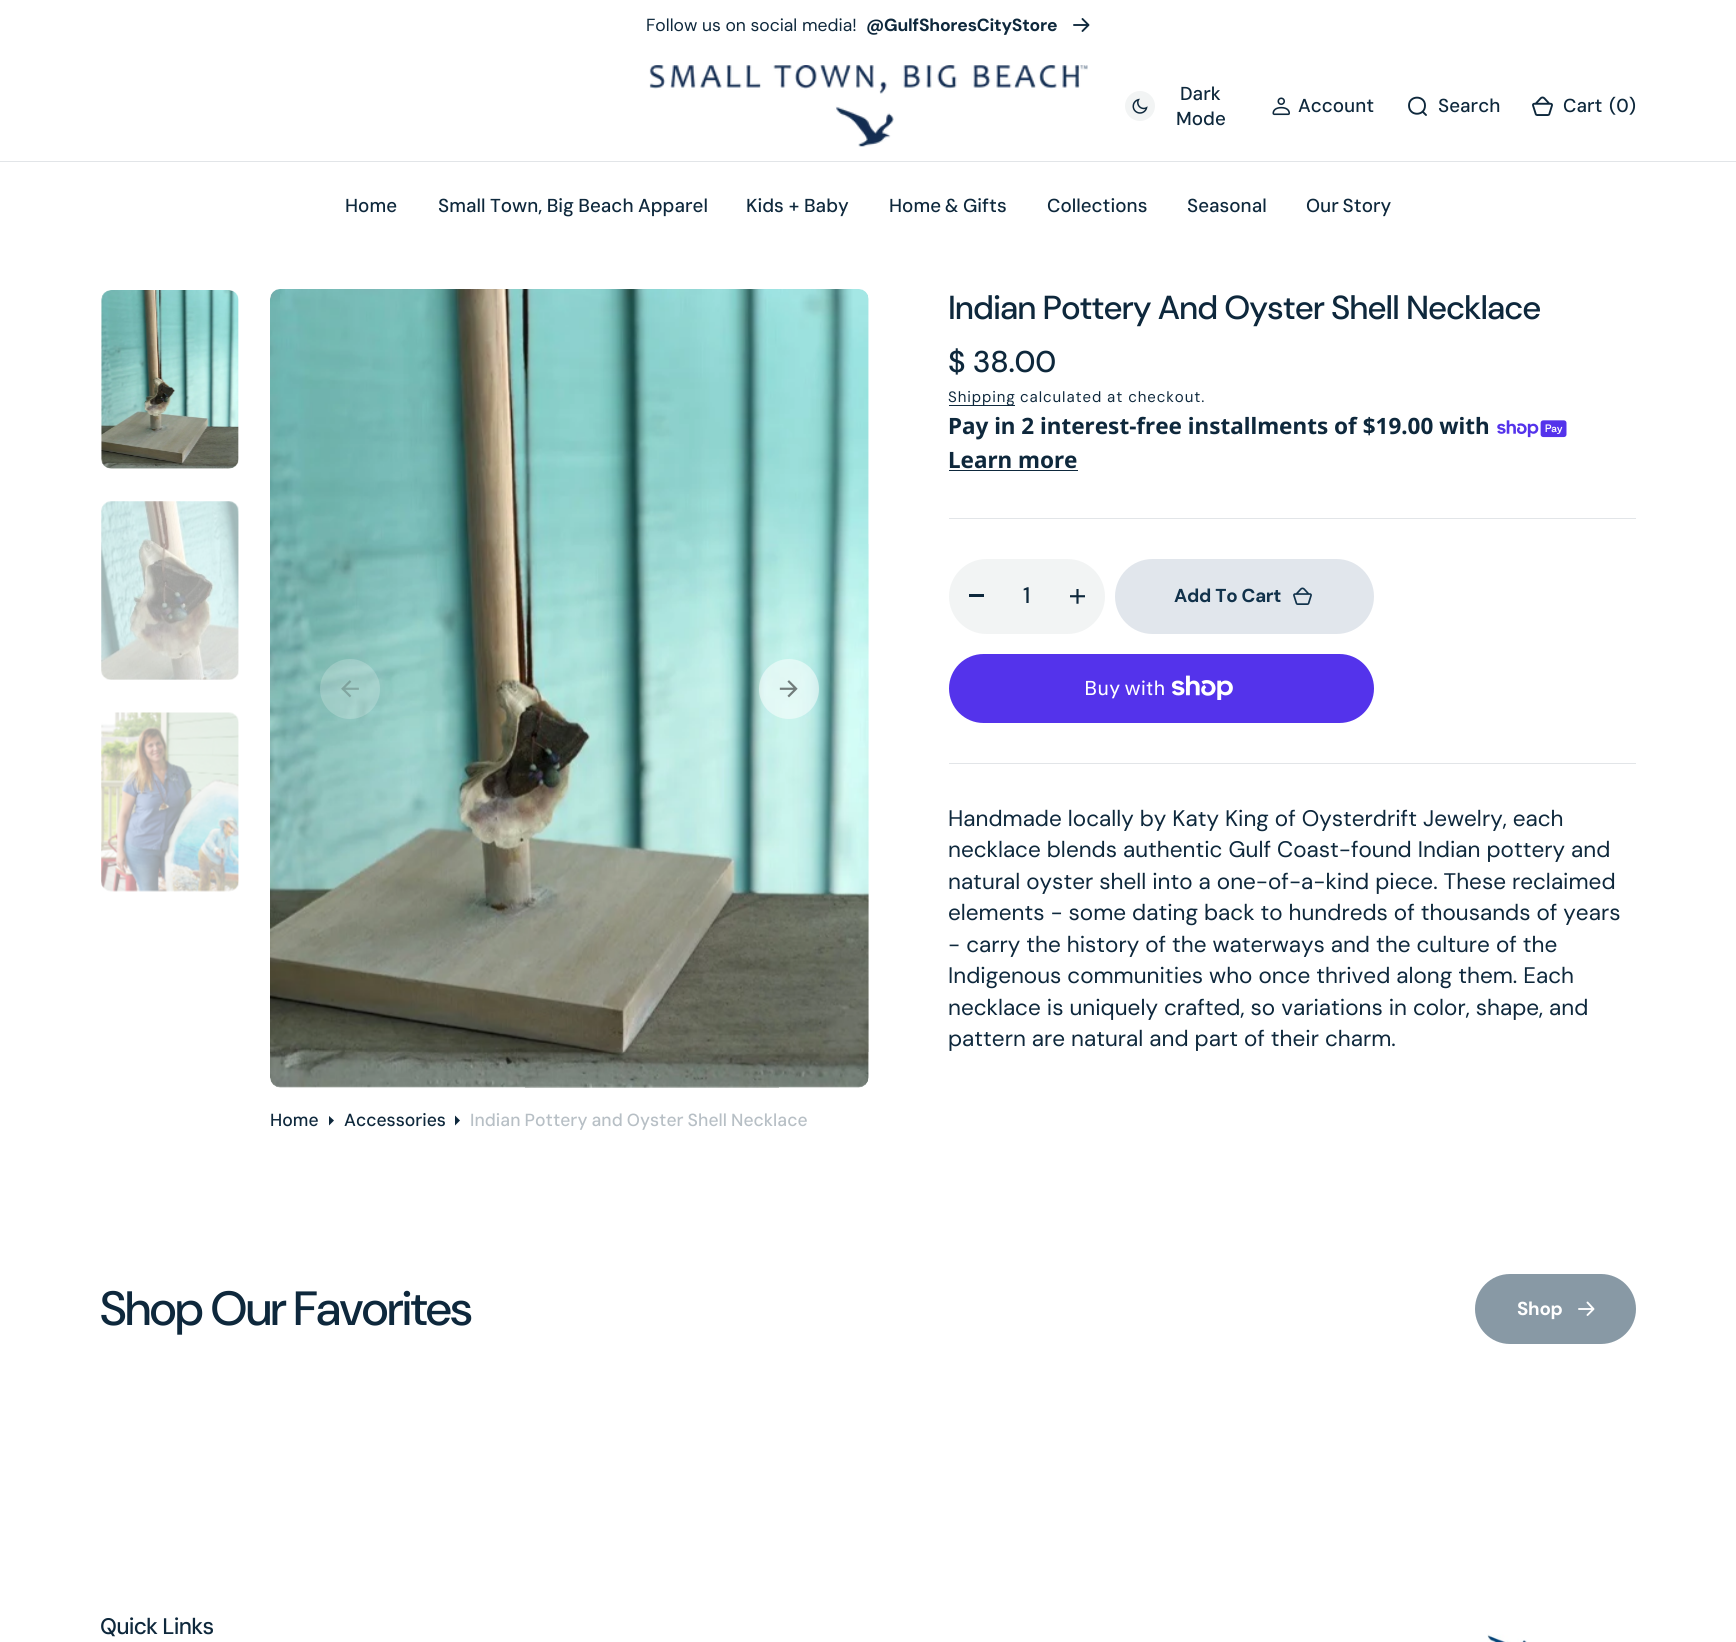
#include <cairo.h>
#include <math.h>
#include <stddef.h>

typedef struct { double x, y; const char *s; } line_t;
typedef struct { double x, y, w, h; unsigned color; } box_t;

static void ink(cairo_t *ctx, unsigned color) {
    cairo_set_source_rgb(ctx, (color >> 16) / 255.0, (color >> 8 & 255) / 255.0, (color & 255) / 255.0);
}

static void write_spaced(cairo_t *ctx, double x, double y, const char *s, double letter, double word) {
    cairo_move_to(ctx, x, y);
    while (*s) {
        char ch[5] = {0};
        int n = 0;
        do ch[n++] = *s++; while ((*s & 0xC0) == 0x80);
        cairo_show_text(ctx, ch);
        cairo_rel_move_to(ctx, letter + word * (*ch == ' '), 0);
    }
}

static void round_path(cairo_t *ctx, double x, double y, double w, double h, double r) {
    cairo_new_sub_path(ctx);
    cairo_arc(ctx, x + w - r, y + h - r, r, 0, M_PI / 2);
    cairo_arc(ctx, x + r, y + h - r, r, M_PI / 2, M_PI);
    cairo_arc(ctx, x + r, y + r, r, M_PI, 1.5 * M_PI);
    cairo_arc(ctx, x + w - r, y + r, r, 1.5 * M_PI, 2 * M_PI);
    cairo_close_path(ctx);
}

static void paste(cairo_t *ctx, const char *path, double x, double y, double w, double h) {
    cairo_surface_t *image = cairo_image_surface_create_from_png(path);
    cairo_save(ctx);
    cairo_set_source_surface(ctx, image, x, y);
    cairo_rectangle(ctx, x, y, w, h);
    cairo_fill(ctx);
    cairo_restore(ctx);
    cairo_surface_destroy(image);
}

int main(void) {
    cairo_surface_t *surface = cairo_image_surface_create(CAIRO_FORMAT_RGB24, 1736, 1642);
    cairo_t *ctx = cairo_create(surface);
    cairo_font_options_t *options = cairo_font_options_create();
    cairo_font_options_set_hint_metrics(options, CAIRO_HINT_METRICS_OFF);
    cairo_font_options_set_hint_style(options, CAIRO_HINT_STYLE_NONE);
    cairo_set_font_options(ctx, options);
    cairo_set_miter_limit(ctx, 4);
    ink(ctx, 0xFFFFFF);
    cairo_paint(ctx);
    cairo_select_font_face(ctx, "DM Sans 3", CAIRO_FONT_SLANT_NORMAL, CAIRO_FONT_WEIGHT_NORMAL);
    cairo_set_font_size(ctx, 17.5);
    ink(ctx, 0x0E283C);
    cairo_move_to(ctx, 646, 31);
    cairo_show_text(ctx, "Follow us on social media!");
    cairo_select_font_face(ctx, "DM Sans", CAIRO_FONT_SLANT_NORMAL, CAIRO_FONT_WEIGHT_BOLD);
    write_spaced(ctx, 866, 31, "@GulfShoresCityStore", -0.2, 0);
    cairo_new_path(ctx);
    cairo_move_to(ctx, 1082.5, 19);
    cairo_line_to(ctx, 1088.5, 25);
    cairo_move_to(ctx, 1088.5, 25);
    cairo_line_to(ctx, 1082.5, 31);
    cairo_move_to(ctx, 1088.5, 25);
    cairo_line_to(ctx, 1074, 25);
    cairo_set_line_width(ctx, 1.9);
    cairo_set_line_cap(ctx, CAIRO_LINE_CAP_ROUND);
    cairo_set_line_join(ctx, CAIRO_LINE_JOIN_ROUND);
    cairo_stroke(ctx);
    ink(ctx, 0xE2E5E8);
    cairo_rectangle(ctx, 0, 161, 1736, 1);
    cairo_fill(ctx);
    paste(ctx, "media/1.png", 649, 65, 439, 82);
    ink(ctx, 0xF2F4F4);
    cairo_arc(ctx, 1140, 106, 15, 0, 2 * M_PI);
    cairo_fill(ctx);
    paste(ctx, "media/2.png", 1132, 98, 16, 16);
    cairo_select_font_face(ctx, "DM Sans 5 Medium", CAIRO_FONT_SLANT_NORMAL, CAIRO_FONT_WEIGHT_NORMAL);
    cairo_set_font_size(ctx, 18.75);
    ink(ctx, 0x0E283C);
    cairo_move_to(ctx, 1180, 100);
    cairo_show_text(ctx, "Dark");
    cairo_move_to(ctx, 1176, 125);
    cairo_show_text(ctx, "Mode");
    paste(ctx, "media/3.png", 1272, 97, 18, 19);
    cairo_move_to(ctx, 1298, 112);
    cairo_show_text(ctx, "Account");
    cairo_new_path(ctx);
    cairo_move_to(ctx, 1422.5, 111.5);
    cairo_line_to(ctx, 1426, 115);
    cairo_move_to(ctx, 1425, 105.5);
    cairo_curve_to(ctx, 1425, 116.5, 1409, 116.5, 1409, 105.5);
    cairo_curve_to(ctx, 1409, 95, 1425, 95, 1425, 105.5);
    cairo_close_path(ctx);
    cairo_set_line_join(ctx, CAIRO_LINE_JOIN_MITER);
    cairo_stroke(ctx);
    cairo_move_to(ctx, 1438, 112);
    cairo_show_text(ctx, "Search");
    paste(ctx, "media/4.png", 1532, 96, 21, 20);
    {
        static const line_t items[] = {
            {1563, 112, "Cart"},
            {1609, 112, "(0)"},
            {345, 212, "Home"},
        };
        for (size_t i = 0; i < sizeof items / sizeof *items; i++) {
            cairo_move_to(ctx, items[i].x, items[i].y);
            cairo_show_text(ctx, items[i].s);
        }
    }
    write_spaced(ctx, 438, 212, "Small Town, Big Beach Apparel", 0, -0.5);
    cairo_move_to(ctx, 746, 212);
    cairo_show_text(ctx, "Kids + Baby");
    write_spaced(ctx, 889, 212, "Home & Gifts", 0, -1);
    cairo_move_to(ctx, 1047, 212);
    cairo_show_text(ctx, "Collections");
    cairo_move_to(ctx, 1187, 212);
    cairo_show_text(ctx, "Seasonal");
    write_spaced(ctx, 1306, 212, "Our Story", 0, -1);
    cairo_select_font_face(ctx, "DM Sans Medium", CAIRO_FONT_SLANT_NORMAL, CAIRO_FONT_WEIGHT_NORMAL);
    cairo_set_font_size(ctx, 33.25);
    write_spaced(ctx, 948, 319, "Indian Pottery And Oyster Shell Necklace", -1, 0);
    cairo_select_font_face(ctx, "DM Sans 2 Medium", CAIRO_FONT_SLANT_NORMAL, CAIRO_FONT_WEIGHT_NORMAL);
    cairo_set_font_size(ctx, 30);
    write_spaced(ctx, 948, 372, "$ 38.00", -0.25, 0);
    cairo_rectangle(ctx, 949, 405, 66, 1);
    cairo_fill(ctx);
    cairo_select_font_face(ctx, "DM Sans", CAIRO_FONT_SLANT_NORMAL, CAIRO_FONT_WEIGHT_NORMAL);
    cairo_set_font_size(ctx, 15);
    write_spaced(ctx, 948, 402, "Shipping", 0.9, 0);
    write_spaced(ctx, 1020, 402, "calculated at checkout.", 0.9, 0);
    cairo_select_font_face(ctx, "Noto Sans", CAIRO_FONT_SLANT_NORMAL, CAIRO_FONT_WEIGHT_BOLD);
    cairo_set_font_size(ctx, 22.5);
    cairo_move_to(ctx, 948, 434);
    cairo_show_text(ctx, "Pay in 2 interest-free installments of $19.00 with");
    paste(ctx, "media/5.png", 1497, 420, 70, 18);
    cairo_move_to(ctx, 948, 468);
    cairo_show_text(ctx, "Learn more");
    {
        static const box_t items[] = {
            {949, 470, 129, 1, 0x0E283C},
            {949, 518, 687, 1, 0xE2E5E8},
            {949, 763, 687, 1, 0xE2E5E8},
        };
        for (size_t i = 0; i < sizeof items / sizeof *items; i++) {
            ink(ctx, items[i].color);
            cairo_rectangle(ctx, items[i].x, items[i].y, items[i].w, items[i].h);
            cairo_fill(ctx);
        }
    }
    ink(ctx, 0xF2F4F4);
    round_path(ctx, 949, 559, 156, 75, 37.5);
    cairo_fill(ctx);
    ink(ctx, 0x0E283C);
    cairo_rectangle(ctx, 969, 594, 15, 3);
    cairo_fill(ctx);
    cairo_select_font_face(ctx, "DM Sans 3 Medium", CAIRO_FONT_SLANT_NORMAL, CAIRO_FONT_WEIGHT_NORMAL);
    cairo_move_to(ctx, 1023, 603);
    cairo_show_text(ctx, "1");
    paste(ctx, "media/6.png", 1070, 589, 15, 15);
    ink(ctx, 0xE1E6EC);
    round_path(ctx, 1115, 559, 259, 75, 37.5);
    cairo_fill(ctx);
    cairo_select_font_face(ctx, "DM Sans 2", CAIRO_FONT_SLANT_NORMAL, CAIRO_FONT_WEIGHT_BOLD);
    cairo_set_font_size(ctx, 18.75);
    ink(ctx, 0x11324B);
    write_spaced(ctx, 1174, 602, "Add To Cart", -0.25, 0);
    paste(ctx, "media/7.png", 1293, 587, 19, 18);
    ink(ctx, 0x5433EB);
    round_path(ctx, 949, 654, 425, 69, 34.5);
    cairo_fill(ctx);
    cairo_select_font_face(ctx, "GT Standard", CAIRO_FONT_SLANT_NORMAL, CAIRO_FONT_WEIGHT_NORMAL);
    cairo_set_font_size(ctx, 20);
    ink(ctx, 0xFFFFFF);
    cairo_move_to(ctx, 1084, 695);
    cairo_show_text(ctx, "Buy with");
    paste(ctx, "media/8.png", 1171, 675, 62, 25);
    cairo_select_font_face(ctx, "DM Sans 2", CAIRO_FONT_SLANT_NORMAL, CAIRO_FONT_WEIGHT_NORMAL);
    cairo_set_font_size(ctx, 22.5);
    ink(ctx, 0x0E283C);
    {
        static const line_t items[] = {
            {948, 826, "Handmade locally by Katy King of Oysterdrift Jewelry, each"},
            {948, 857, "necklace blends authentic Gulf Coast-found Indian pottery and"},
            {948, 889, "natural oyster shell into a one-of-a-kind piece. These reclaimed"},
            {948, 920, "elements - some dating back to hundreds of thousands of years"},
            {948, 952, "- carry the history of the waterways and the culture of the"},
            {948, 983, "Indigenous communities who once thrived along them. Each"},
            {948, 1015, "necklace is uniquely crafted, so variations in color, shape, and"},
            {948, 1046, "pattern are natural and part of their charm."},
        };
        for (size_t i = 0; i < sizeof items / sizeof *items; i++) {
            cairo_move_to(ctx, items[i].x, items[i].y);
            cairo_show_text(ctx, items[i].s);
        }
    }
    paste(ctx, "media/9.png", 101, 290, 138, 179);
    paste(ctx, "media/10.png", 101, 501, 138, 179);
    paste(ctx, "media/11.png", 101, 712, 138, 180);
    paste(ctx, "media/12.png", 270, 289, 599, 799);
    cairo_set_source_rgba(ctx, 1, 1, 1, 0.2);
    cairo_arc(ctx, 350, 689, 30, 0, 2 * M_PI);
    cairo_fill(ctx);
    paste(ctx, "media/13.png", 341, 680, 18, 18);
    cairo_set_source_rgba(ctx, 1, 1, 1, 0.5);
    cairo_arc(ctx, 789, 689, 30, 0, 2 * M_PI);
    cairo_fill(ctx);
    paste(ctx, "media/14.png", 779, 680, 19, 18);
    cairo_select_font_face(ctx, "DM Sans 5 Medium", CAIRO_FONT_SLANT_NORMAL, CAIRO_FONT_WEIGHT_NORMAL);
    cairo_set_font_size(ctx, 17.5);
    ink(ctx, 0x0E283C);
    cairo_move_to(ctx, 270, 1126);
    cairo_show_text(ctx, "Home");
    cairo_save(ctx);
    cairo_rectangle(ctx, 329, 1115, 5, 11);
    cairo_clip(ctx);
    cairo_new_path(ctx);
    cairo_move_to(ctx, 334, 1120.5);
    cairo_line_to(ctx, 329, 1125.5);
    cairo_line_to(ctx, 328.5, 1115.5);
    cairo_close_path(ctx);
    cairo_fill(ctx);
    cairo_restore(ctx);
    cairo_move_to(ctx, 344, 1126);
    cairo_show_text(ctx, "Accessories");
    cairo_new_path(ctx);
    cairo_move_to(ctx, 460, 1120.5);
    cairo_line_to(ctx, 455, 1125.5);
    cairo_line_to(ctx, 455, 1115.5);
    cairo_close_path(ctx);
    cairo_fill(ctx);
    ink(ctx, 0xB7BFC5);
    write_spaced(ctx, 470, 1126, "Indian Pottery and Oyster Shell Necklace", 0, -0.5);
    cairo_select_font_face(ctx, "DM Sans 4 Medium", CAIRO_FONT_SLANT_NORMAL, CAIRO_FONT_WEIGHT_NORMAL);
    cairo_set_font_size(ctx, 48);
    ink(ctx, 0x0E283C);
    write_spaced(ctx, 100, 1325, "Shop Our Favorites", -1.4, 0);
    ink(ctx, 0x8899A5);
    round_path(ctx, 1475, 1274, 161, 70, 35);
    cairo_fill(ctx);
    cairo_select_font_face(ctx, "DM Sans 2", CAIRO_FONT_SLANT_NORMAL, CAIRO_FONT_WEIGHT_BOLD);
    cairo_set_font_size(ctx, 18.75);
    ink(ctx, 0xFFFFFF);
    write_spaced(ctx, 1517, 1315, "Shop", -0.25, 0);
    cairo_new_path(ctx);
    cairo_move_to(ctx, 1587.5, 1302.5);
    cairo_line_to(ctx, 1593.5, 1309);
    cairo_move_to(ctx, 1593.5, 1309);
    cairo_line_to(ctx, 1587.5, 1315);
    cairo_move_to(ctx, 1593.5, 1309);
    cairo_line_to(ctx, 1579, 1309);
    cairo_set_line_join(ctx, CAIRO_LINE_JOIN_ROUND);
    cairo_stroke(ctx);
    cairo_select_font_face(ctx, "DM Sans 5 Medium", CAIRO_FONT_SLANT_NORMAL, CAIRO_FONT_WEIGHT_NORMAL);
    cairo_set_font_size(ctx, 22.5);
    ink(ctx, 0x0E283C);
    write_spaced(ctx, 100, 1634, "Quick Links", -0.75, 0);
    paste(ctx, "media/15.png", 1487, 1634, 40, 8);
    cairo_surface_write_to_png(surface, "image.png");
    cairo_font_options_destroy(options);
    cairo_destroy(ctx);
    cairo_surface_destroy(surface);
    return 0;
}
